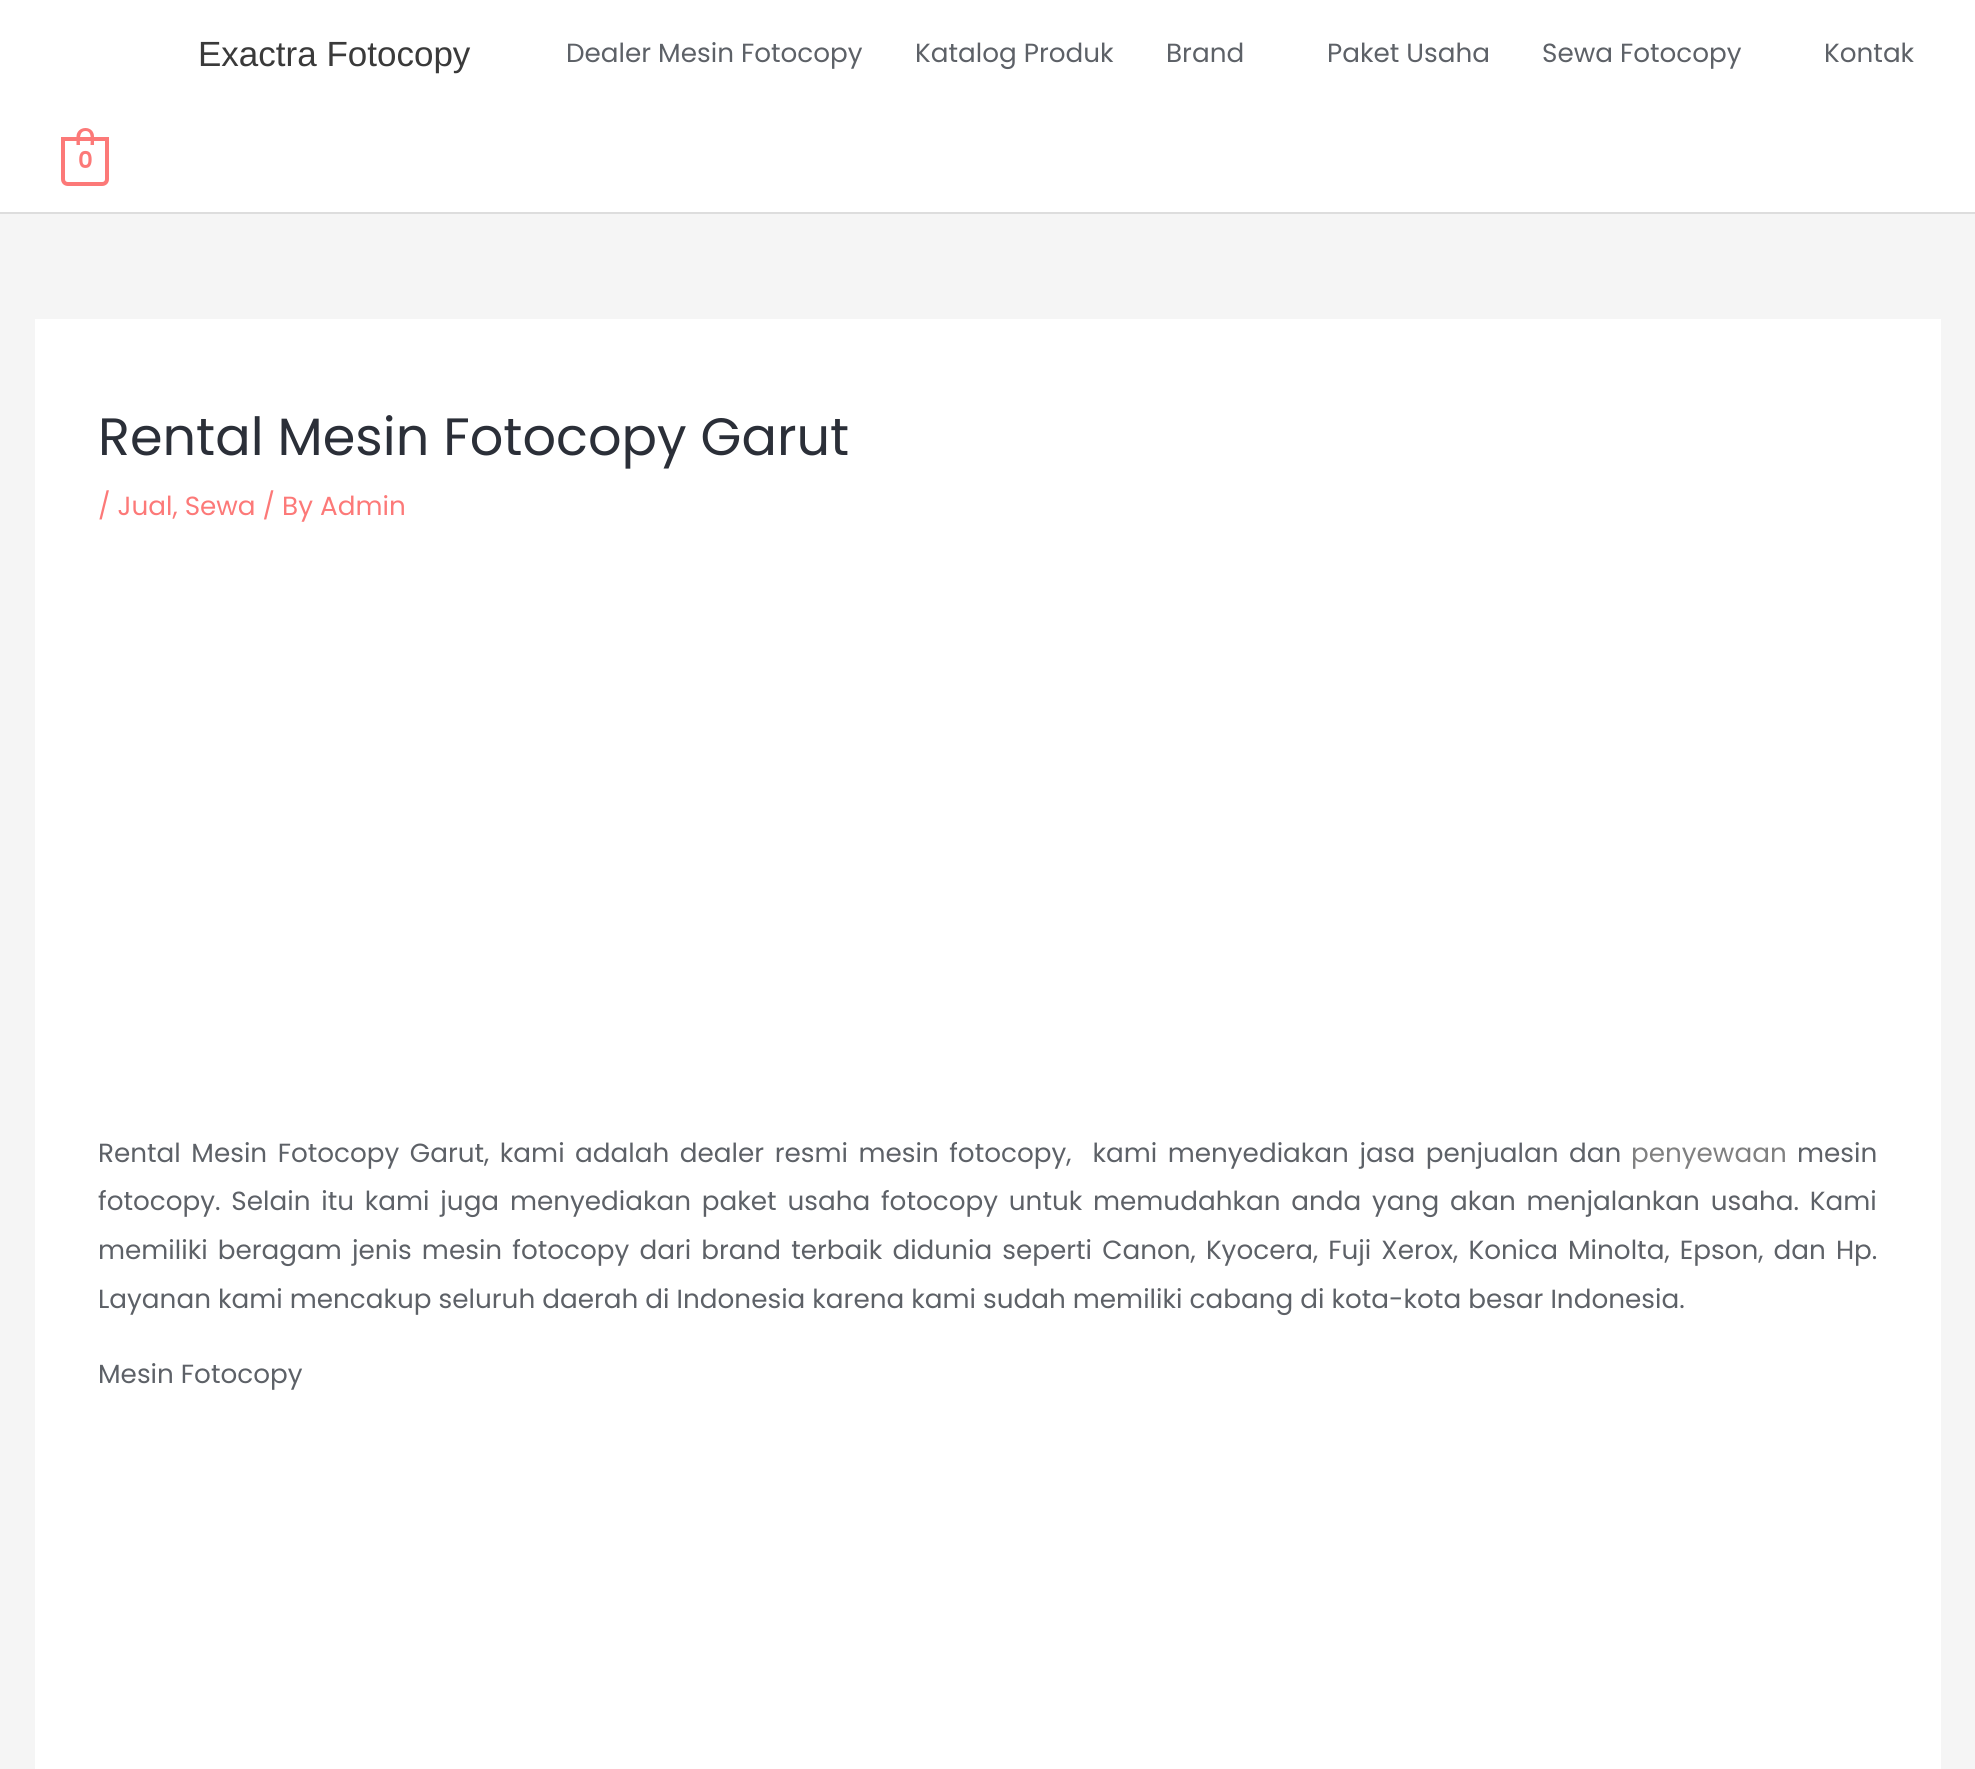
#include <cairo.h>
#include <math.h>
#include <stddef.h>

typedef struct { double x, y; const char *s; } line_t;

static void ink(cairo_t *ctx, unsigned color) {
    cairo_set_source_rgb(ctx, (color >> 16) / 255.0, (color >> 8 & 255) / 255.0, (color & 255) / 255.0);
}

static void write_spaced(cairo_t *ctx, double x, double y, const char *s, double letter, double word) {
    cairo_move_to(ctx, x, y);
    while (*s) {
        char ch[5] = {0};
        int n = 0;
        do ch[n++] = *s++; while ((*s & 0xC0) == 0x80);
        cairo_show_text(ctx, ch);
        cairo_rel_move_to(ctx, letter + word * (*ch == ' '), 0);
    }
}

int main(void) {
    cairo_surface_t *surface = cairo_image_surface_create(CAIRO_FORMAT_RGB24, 1975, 1769);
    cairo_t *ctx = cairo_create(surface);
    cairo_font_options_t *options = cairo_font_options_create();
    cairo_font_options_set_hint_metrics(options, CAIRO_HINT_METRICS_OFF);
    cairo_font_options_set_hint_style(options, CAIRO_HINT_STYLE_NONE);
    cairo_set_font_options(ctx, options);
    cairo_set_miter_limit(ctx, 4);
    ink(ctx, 0xF5F5F5);
    cairo_paint(ctx);
    ink(ctx, 0xFFFFFF);
    cairo_rectangle(ctx, 0, 0, 1975, 212);
    cairo_fill(ctx);
    ink(ctx, 0xDDDDDD);
    cairo_rectangle(ctx, 0, 212, 1975, 2);
    cairo_fill(ctx);
    cairo_select_font_face(ctx, "Liberation Sans", CAIRO_FONT_SLANT_NORMAL, CAIRO_FONT_WEIGHT_NORMAL);
    cairo_set_font_size(ctx, 35);
    ink(ctx, 0x3A3A3A);
    cairo_move_to(ctx, 198, 66);
    cairo_show_text(ctx, "Exactra Fotocopy");
    cairo_select_font_face(ctx, "Poppins", CAIRO_FONT_SLANT_NORMAL, CAIRO_FONT_WEIGHT_NORMAL);
    cairo_set_font_size(ctx, 26.25);
    ink(ctx, 0x5D6167);
    {
        static const line_t items[] = {
            {566, 62, "Dealer Mesin Fotocopy"},
            {915, 62, "Katalog Produk"},
            {1166, 62, "Brand"},
            {1327, 62, "Paket Usaha"},
            {1542, 62, "Sewa Fotocopy"},
            {1824, 62, "Kontak"},
        };
        for (size_t i = 0; i < sizeof items / sizeof *items; i++) {
            cairo_move_to(ctx, items[i].x, items[i].y);
            cairo_show_text(ctx, items[i].s);
        }
    }
    cairo_new_path(ctx);
    cairo_move_to(ctx, 63, 139);
    cairo_line_to(ctx, 107, 139);
    cairo_line_to(ctx, 107, 179);
    cairo_curve_to(ctx, 107, 182, 105, 184, 102, 184);
    cairo_line_to(ctx, 68, 184);
    cairo_curve_to(ctx, 65, 184, 63, 182, 63, 179);
    cairo_close_path(ctx);
    ink(ctx, 0xFC7978);
    cairo_set_line_width(ctx, 4);
    cairo_stroke(ctx);
    cairo_set_fill_rule(ctx, CAIRO_FILL_RULE_EVEN_ODD);
    cairo_new_path(ctx);
    cairo_move_to(ctx, 85.5, 128);
    cairo_curve_to(ctx, 90.5, 128, 94, 131.5, 94, 136.5);
    cairo_line_to(ctx, 94, 145);
    cairo_line_to(ctx, 76.5, 145);
    cairo_line_to(ctx, 76.5, 136.5);
    cairo_curve_to(ctx, 76.5, 131.5, 80.5, 128, 85.5, 128);
    cairo_close_path(ctx);
    cairo_move_to(ctx, 85.5, 131);
    cairo_curve_to(ctx, 92.5, 131, 90.5, 141, 90.5, 145);
    cairo_line_to(ctx, 80, 145);
    cairo_curve_to(ctx, 80, 141, 78.5, 131, 85.5, 131);
    cairo_close_path(ctx);
    cairo_fill(ctx);
    cairo_select_font_face(ctx, "Poppins SemiBold", CAIRO_FONT_SLANT_NORMAL, CAIRO_FONT_WEIGHT_NORMAL);
    cairo_set_font_size(ctx, 23);
    cairo_move_to(ctx, 78, 168);
    cairo_show_text(ctx, "0");
    ink(ctx, 0xFFFFFF);
    cairo_rectangle(ctx, 35, 319, 1906, 1450);
    cairo_fill(ctx);
    cairo_select_font_face(ctx, "Poppins", CAIRO_FONT_SLANT_NORMAL, CAIRO_FONT_WEIGHT_NORMAL);
    cairo_set_font_size(ctx, 52.5);
    ink(ctx, 0x2B2F38);
    cairo_move_to(ctx, 98, 455);
    cairo_show_text(ctx, "Rental Mesin Fotocopy Garut");
    cairo_set_font_size(ctx, 26.25);
    ink(ctx, 0xFC7978);
    cairo_move_to(ctx, 98, 515);
    cairo_show_text(ctx, "/ Jual, Sewa / By Admin");
    ink(ctx, 0x5D6167);
    write_spaced(ctx, 98, 1162, "Rental Mesin Fotocopy Garut, kami adalah dealer resmi mesin fotocopy,  kami menyediakan jasa penjualan dan", 0, 3.5);
    ink(ctx, 0x808080);
    cairo_move_to(ctx, 1631, 1162);
    cairo_show_text(ctx, "penyewaan");
    ink(ctx, 0x5D6167);
    cairo_move_to(ctx, 1797, 1162);
    cairo_show_text(ctx, "mesin");
    write_spaced(ctx, 98, 1210, "fotocopy. Selain itu kami juga menyediakan paket usaha fotocopy untuk memudahkan anda yang akan menjalankan usaha. Kami", 0, 3.75);
    write_spaced(ctx, 98, 1259, "memiliki beragam jenis mesin fotocopy dari brand terbaik didunia seperti Canon, Kyocera, Fuji Xerox, Konica Minolta, Epson, dan Hp.", 0, 3.1);
    cairo_move_to(ctx, 98, 1308);
    cairo_show_text(ctx, "Layanan kami mencakup seluruh daerah di Indonesia karena kami sudah memiliki cabang di kota-kota besar Indonesia.");
    cairo_move_to(ctx, 98, 1383);
    cairo_show_text(ctx, "Mesin Fotocopy");
    cairo_surface_write_to_png(surface, "image.png");
    cairo_font_options_destroy(options);
    cairo_destroy(ctx);
    cairo_surface_destroy(surface);
    return 0;
}
